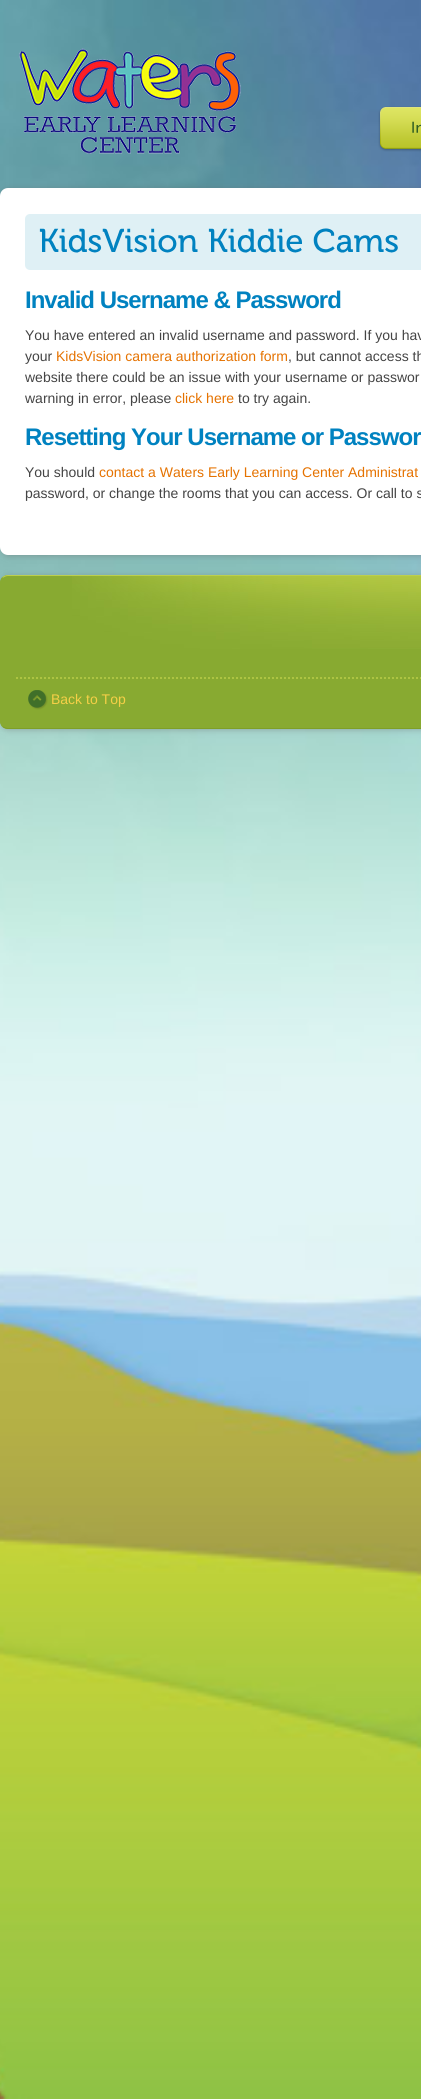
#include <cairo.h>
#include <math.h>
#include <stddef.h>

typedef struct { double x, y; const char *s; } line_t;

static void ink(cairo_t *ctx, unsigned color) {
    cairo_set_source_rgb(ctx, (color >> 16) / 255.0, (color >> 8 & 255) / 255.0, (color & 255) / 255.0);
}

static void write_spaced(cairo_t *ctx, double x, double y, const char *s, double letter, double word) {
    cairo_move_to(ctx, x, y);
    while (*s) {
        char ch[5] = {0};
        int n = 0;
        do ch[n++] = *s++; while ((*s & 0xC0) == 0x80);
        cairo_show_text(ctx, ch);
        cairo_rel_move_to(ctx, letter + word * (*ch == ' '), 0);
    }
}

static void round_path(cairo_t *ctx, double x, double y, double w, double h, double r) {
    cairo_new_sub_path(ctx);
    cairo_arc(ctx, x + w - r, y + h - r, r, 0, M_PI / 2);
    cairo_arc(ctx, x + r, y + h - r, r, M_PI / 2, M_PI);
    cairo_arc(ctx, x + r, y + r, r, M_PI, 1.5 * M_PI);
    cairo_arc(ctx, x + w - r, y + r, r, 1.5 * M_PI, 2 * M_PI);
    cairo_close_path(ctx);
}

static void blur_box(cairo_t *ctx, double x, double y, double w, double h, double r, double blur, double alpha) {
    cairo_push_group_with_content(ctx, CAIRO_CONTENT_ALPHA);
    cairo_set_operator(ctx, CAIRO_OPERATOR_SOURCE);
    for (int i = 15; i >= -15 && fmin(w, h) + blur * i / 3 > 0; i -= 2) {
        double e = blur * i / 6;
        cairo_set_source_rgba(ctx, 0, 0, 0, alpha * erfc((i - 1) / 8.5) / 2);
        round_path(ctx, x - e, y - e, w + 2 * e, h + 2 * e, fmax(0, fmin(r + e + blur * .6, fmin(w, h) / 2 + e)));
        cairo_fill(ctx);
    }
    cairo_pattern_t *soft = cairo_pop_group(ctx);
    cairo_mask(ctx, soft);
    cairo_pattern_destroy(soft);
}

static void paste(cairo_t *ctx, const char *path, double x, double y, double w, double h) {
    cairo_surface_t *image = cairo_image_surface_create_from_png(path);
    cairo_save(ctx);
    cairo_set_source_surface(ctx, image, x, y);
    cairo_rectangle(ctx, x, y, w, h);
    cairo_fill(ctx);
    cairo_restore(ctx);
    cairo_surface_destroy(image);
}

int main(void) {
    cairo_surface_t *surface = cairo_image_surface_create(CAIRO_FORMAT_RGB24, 421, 2099);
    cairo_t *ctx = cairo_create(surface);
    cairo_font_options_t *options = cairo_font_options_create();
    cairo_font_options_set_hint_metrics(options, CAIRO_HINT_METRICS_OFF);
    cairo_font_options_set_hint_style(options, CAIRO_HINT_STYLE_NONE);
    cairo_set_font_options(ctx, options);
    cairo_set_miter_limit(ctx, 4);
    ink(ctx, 0xFFFFFF);
    cairo_paint(ctx);
    paste(ctx, "media/1.png", 0, 0, 421, 2099);
    paste(ctx, "media/2.png", 19, 48, 222, 106);
    paste(ctx, "media/3.png", 378, 106, 18, 46);
    paste(ctx, "media/4.png", 396, 106, 25, 46);
    paste(ctx, "media/5.png", 412, 121, 9, 12);
    ink(ctx, 0x666666);
    blur_box(ctx, 1, 189, 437, 367, 8, 3, 0.4);
    ink(ctx, 0xFFFFFF);
    round_path(ctx, 0, 188, 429, 367, 8);
    cairo_fill(ctx);
    ink(ctx, 0xDFF0F5);
    round_path(ctx, 25, 214, 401, 56, 5);
    cairo_fill(ctx);
    paste(ctx, "media/6.png", 39, 228, 159, 25);
    paste(ctx, "media/7.png", 208, 228, 94, 25);
    paste(ctx, "media/8.png", 313, 228, 85, 25);
    cairo_select_font_face(ctx, "Liberation Sans", CAIRO_FONT_SLANT_NORMAL, CAIRO_FONT_WEIGHT_BOLD);
    cairo_set_font_size(ctx, 24);
    ink(ctx, 0x0082C0);
    write_spaced(ctx, 25, 308, "Invalid Username & Password", -1, 0);
    cairo_select_font_face(ctx, "Liberation Sans", CAIRO_FONT_SLANT_NORMAL, CAIRO_FONT_WEIGHT_NORMAL);
    cairo_set_font_size(ctx, 14);
    ink(ctx, 0x444444);
    cairo_move_to(ctx, 25, 340);
    cairo_show_text(ctx, "You have entered an invalid username and password. If you hav");
    cairo_move_to(ctx, 25, 361);
    cairo_show_text(ctx, "your");
    ink(ctx, 0xE57200);
    cairo_move_to(ctx, 56, 361);
    cairo_show_text(ctx, "KidsVision camera authorization form");
    ink(ctx, 0x444444);
    {
        static const line_t items[] = {
            {288, 361, ", but cannot access th"},
            {25, 382, "website there could be an issue with your username or passwor"},
            {25, 403, "warning in error, please"},
        };
        for (size_t i = 0; i < sizeof items / sizeof *items; i++) {
            cairo_move_to(ctx, items[i].x, items[i].y);
            cairo_show_text(ctx, items[i].s);
        }
    }
    ink(ctx, 0xE57200);
    cairo_move_to(ctx, 175, 403);
    cairo_show_text(ctx, "click here");
    ink(ctx, 0x444444);
    cairo_move_to(ctx, 238, 403);
    cairo_show_text(ctx, "to try again.");
    cairo_select_font_face(ctx, "Liberation Sans", CAIRO_FONT_SLANT_NORMAL, CAIRO_FONT_WEIGHT_BOLD);
    cairo_set_font_size(ctx, 24);
    ink(ctx, 0x0082C0);
    write_spaced(ctx, 25, 445, "Resetting Your Username or Passwor", -1, 0);
    cairo_select_font_face(ctx, "Liberation Sans", CAIRO_FONT_SLANT_NORMAL, CAIRO_FONT_WEIGHT_NORMAL);
    cairo_set_font_size(ctx, 14);
    ink(ctx, 0x444444);
    cairo_move_to(ctx, 25, 477);
    cairo_show_text(ctx, "You should");
    ink(ctx, 0xE57200);
    cairo_move_to(ctx, 99, 477);
    cairo_show_text(ctx, "contact a Waters Early Learning Center Administrat");
    ink(ctx, 0x444444);
    cairo_move_to(ctx, 25, 498);
    cairo_show_text(ctx, "password, or change the rooms that you can access. Or call to s");
    ink(ctx, 0x666666);
    blur_box(ctx, 1, 576, 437, 154, 8, 3, 0.4);
    ink(ctx, 0x88AA31);
    round_path(ctx, 0, 575, 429, 154, 8);
    cairo_fill(ctx);
    paste(ctx, "media/9.png", 72, 576, 349, 73);
    cairo_new_path(ctx);
    cairo_move_to(ctx, 2.5, 577.5);
    cairo_curve_to(ctx, 4, 576.5, 6, 575.5, 8, 575.5);
    cairo_line_to(ctx, 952, 575.5);
    cairo_curve_to(ctx, 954, 575.5, 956, 576.5, 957.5, 577.5);
    ink(ctx, 0xBCCF4D);
    cairo_set_line_width(ctx, 1);
    cairo_stroke(ctx);
    cairo_new_path(ctx);
    cairo_move_to(ctx, 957.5, 726.5);
    cairo_curve_to(ctx, 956, 727.5, 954, 728.5, 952, 728.5);
    cairo_line_to(ctx, 8, 728.5);
    cairo_curve_to(ctx, 6, 728.5, 4, 727.5, 2.5, 726.5);
    ink(ctx, 0x7F9F27);
    cairo_stroke(ctx);
    cairo_new_path(ctx);
    cairo_move_to(ctx, 2.5, 726.5);
    cairo_curve_to(ctx, 1.5, 725, 0.5, 723, 0.5, 721);
    cairo_line_to(ctx, 0.5, 583);
    cairo_curve_to(ctx, 0.5, 581, 1.5, 579, 2.5, 577.5);
    ink(ctx, 0x88AA31);
    cairo_stroke(ctx);
    cairo_new_path(ctx);
    cairo_move_to(ctx, 16, 678);
    cairo_line_to(ctx, 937, 678);
    ink(ctx, 0xADC442);
    cairo_set_line_width(ctx, 2);
    cairo_set_dash(ctx, (double[]){2, 2}, 2, 0);
    cairo_stroke(ctx);
    paste(ctx, "media/10.png", 28, 690, 20, 20);
    ink(ctx, 0xF5CF47);
    cairo_move_to(ctx, 51, 704);
    cairo_show_text(ctx, "Back to Top");
    cairo_surface_write_to_png(surface, "image.png");
    cairo_font_options_destroy(options);
    cairo_destroy(ctx);
    cairo_surface_destroy(surface);
    return 0;
}
